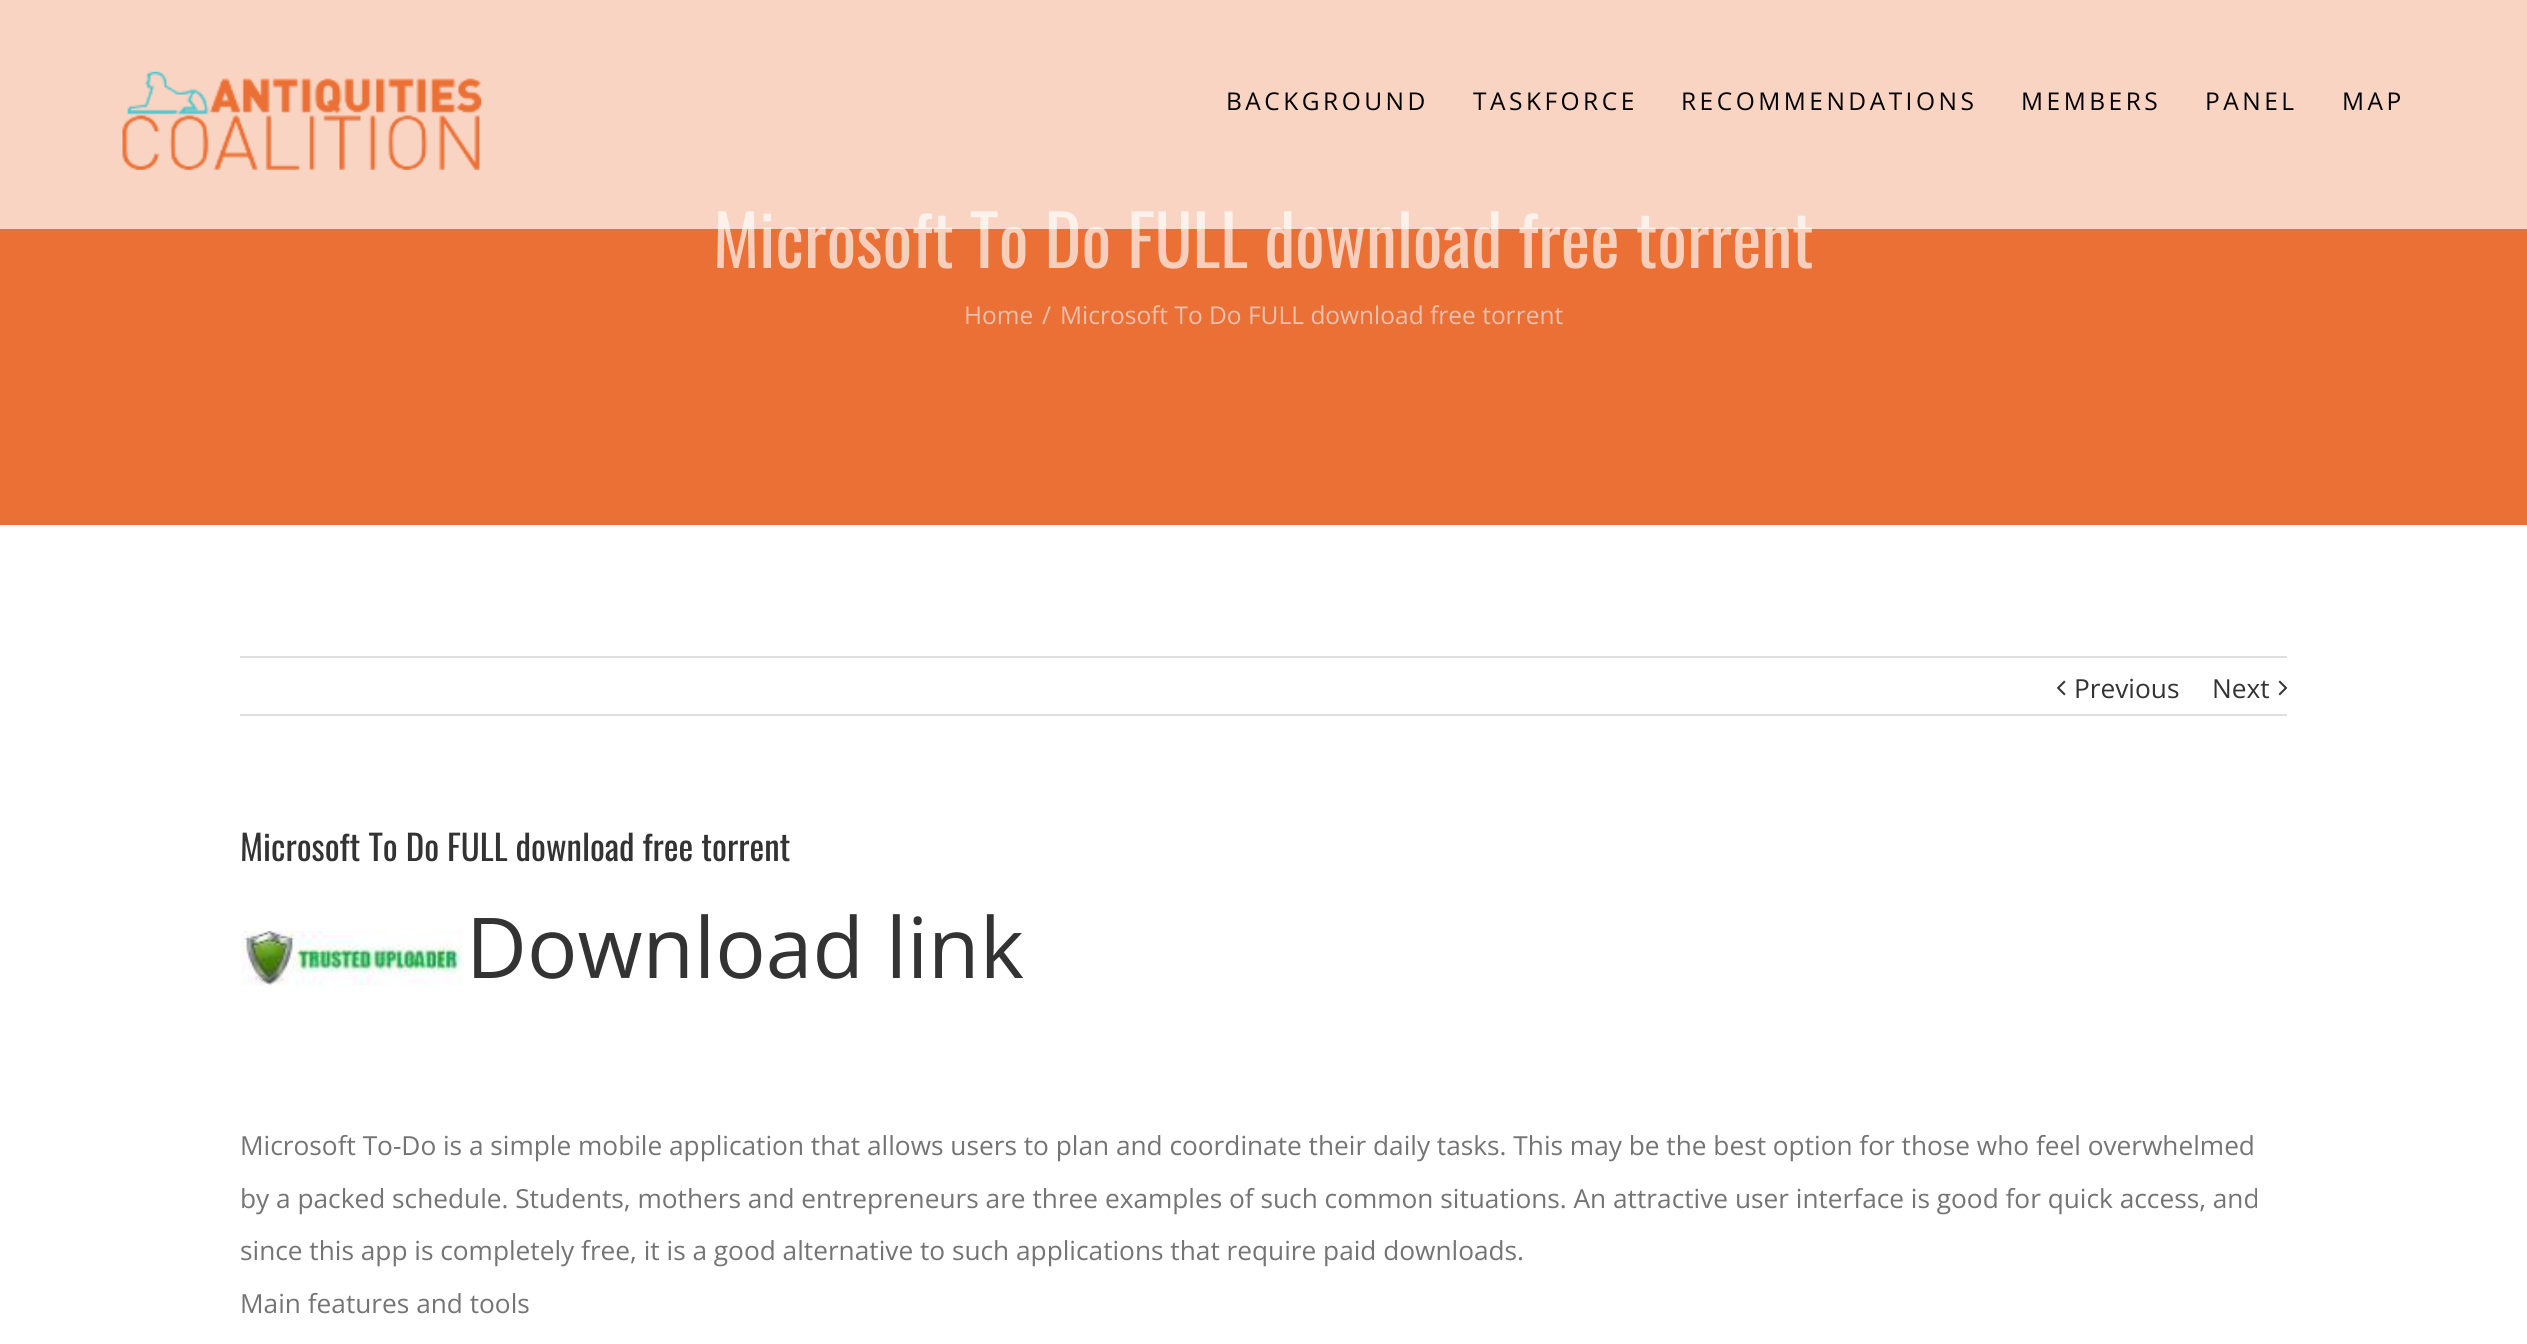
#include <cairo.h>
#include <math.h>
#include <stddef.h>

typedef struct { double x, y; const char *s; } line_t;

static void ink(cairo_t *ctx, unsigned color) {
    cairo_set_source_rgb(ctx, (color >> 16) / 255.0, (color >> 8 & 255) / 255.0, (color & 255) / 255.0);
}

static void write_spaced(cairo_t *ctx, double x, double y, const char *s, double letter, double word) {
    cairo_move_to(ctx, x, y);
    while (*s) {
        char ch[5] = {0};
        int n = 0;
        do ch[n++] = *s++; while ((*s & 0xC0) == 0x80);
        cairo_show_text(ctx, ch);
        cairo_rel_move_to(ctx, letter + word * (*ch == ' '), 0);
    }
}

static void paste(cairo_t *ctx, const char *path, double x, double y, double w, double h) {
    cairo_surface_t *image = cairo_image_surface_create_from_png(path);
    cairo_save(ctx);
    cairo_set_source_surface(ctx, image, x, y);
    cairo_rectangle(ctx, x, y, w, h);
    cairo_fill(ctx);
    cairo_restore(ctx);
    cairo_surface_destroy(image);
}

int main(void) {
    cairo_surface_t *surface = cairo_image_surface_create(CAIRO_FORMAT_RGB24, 2527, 1344);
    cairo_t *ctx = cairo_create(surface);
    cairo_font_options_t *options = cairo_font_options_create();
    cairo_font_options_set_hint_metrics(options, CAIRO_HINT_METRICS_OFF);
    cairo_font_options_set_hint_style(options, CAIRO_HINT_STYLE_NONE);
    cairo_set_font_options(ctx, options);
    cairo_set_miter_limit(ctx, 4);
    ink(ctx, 0xFFFFFF);
    cairo_paint(ctx);
    ink(ctx, 0xEB7035);
    cairo_rectangle(ctx, 0, 0, 2527, 525);
    cairo_fill(ctx);
    cairo_select_font_face(ctx, "Oswald", CAIRO_FONT_SLANT_NORMAL, CAIRO_FONT_WEIGHT_NORMAL);
    cairo_set_font_size(ctx, 70);
    ink(ctx, 0xF8CFBC);
    cairo_move_to(ctx, 713, 268);
    cairo_show_text(ctx, "Microsoft To Do FULL download free torrent");
    cairo_set_source_rgba(ctx, 1, 1, 1, 0.7);
    cairo_rectangle(ctx, 0, 0, 2527, 229);
    cairo_fill(ctx);
    paste(ctx, "media/1.png", 122, 71, 360, 99);
    cairo_select_font_face(ctx, "Open Sans", CAIRO_FONT_SLANT_NORMAL, CAIRO_FONT_WEIGHT_NORMAL);
    cairo_set_font_size(ctx, 24.5);
    ink(ctx, 0x000000);
    {
        static const line_t items[] = {
            {1226, 110, "BACKGROUND"},
            {1473, 110, "TASKFORCE"},
            {1681, 110, "RECOMMENDATIONS"},
            {2021, 110, "MEMBERS"},
            {2205, 110, "PANEL"},
            {2342, 110, "MAP"},
        };
        for (size_t i = 0; i < sizeof items / sizeof *items; i++) {
            write_spaced(ctx, items[i].x, items[i].y, items[i].s, 3.5, 0);
        }
    }
    ink(ctx, 0xEAC1AE);
    {
        static const line_t items[] = {
            {964, 324, "Home"},
            {1042, 324, "/"},
            {1060, 324, "Microsoft To Do FULL download free torrent"},
        };
        for (size_t i = 0; i < sizeof items / sizeof *items; i++) {
            cairo_move_to(ctx, items[i].x, items[i].y);
            cairo_show_text(ctx, items[i].s);
        }
    }
    ink(ctx, 0xE0DEDE);
    cairo_rectangle(ctx, 240, 656, 2047, 2);
    cairo_fill(ctx);
    cairo_rectangle(ctx, 240, 714, 2047, 2);
    cairo_fill(ctx);
    paste(ctx, "media/2.png", 2057, 680, 9, 16);
    cairo_set_font_size(ctx, 26.25);
    ink(ctx, 0x333333);
    cairo_move_to(ctx, 2074, 698);
    cairo_show_text(ctx, "Previous");
    cairo_move_to(ctx, 2212, 698);
    cairo_show_text(ctx, "Next");
    paste(ctx, "media/3.png", 2278, 680, 10, 16);
    cairo_select_font_face(ctx, "Oswald", CAIRO_FONT_SLANT_NORMAL, CAIRO_FONT_WEIGHT_NORMAL);
    cairo_set_font_size(ctx, 35);
    cairo_move_to(ctx, 240, 861);
    cairo_show_text(ctx, "Microsoft To Do FULL download free torrent");
    paste(ctx, "media/4.png", 241, 931, 221, 55);
    cairo_select_font_face(ctx, "Open Sans", CAIRO_FONT_SLANT_NORMAL, CAIRO_FONT_WEIGHT_NORMAL);
    cairo_set_font_size(ctx, 84);
    cairo_move_to(ctx, 466, 978);
    cairo_show_text(ctx, "Download link");
    cairo_set_font_size(ctx, 26.25);
    ink(ctx, 0x747474);
    {
        static const line_t items[] = {
            {240, 1155, "Microsoft To-Do is a simple mobile application that allows users to plan and coordinate their daily tasks. This may be the best option for those who feel overwhelmed"},
            {240, 1208, "by a packed schedule. Students, mothers and entrepreneurs are three examples of such common situations. An attractive user interface is good for quick access, and"},
            {240, 1260, "since this app is completely free, it is a good alternative to such applications that require paid downloads."},
            {240, 1313, "Main features and tools"},
        };
        for (size_t i = 0; i < sizeof items / sizeof *items; i++) {
            cairo_move_to(ctx, items[i].x, items[i].y);
            cairo_show_text(ctx, items[i].s);
        }
    }
    cairo_surface_write_to_png(surface, "image.png");
    cairo_font_options_destroy(options);
    cairo_destroy(ctx);
    cairo_surface_destroy(surface);
    return 0;
}
